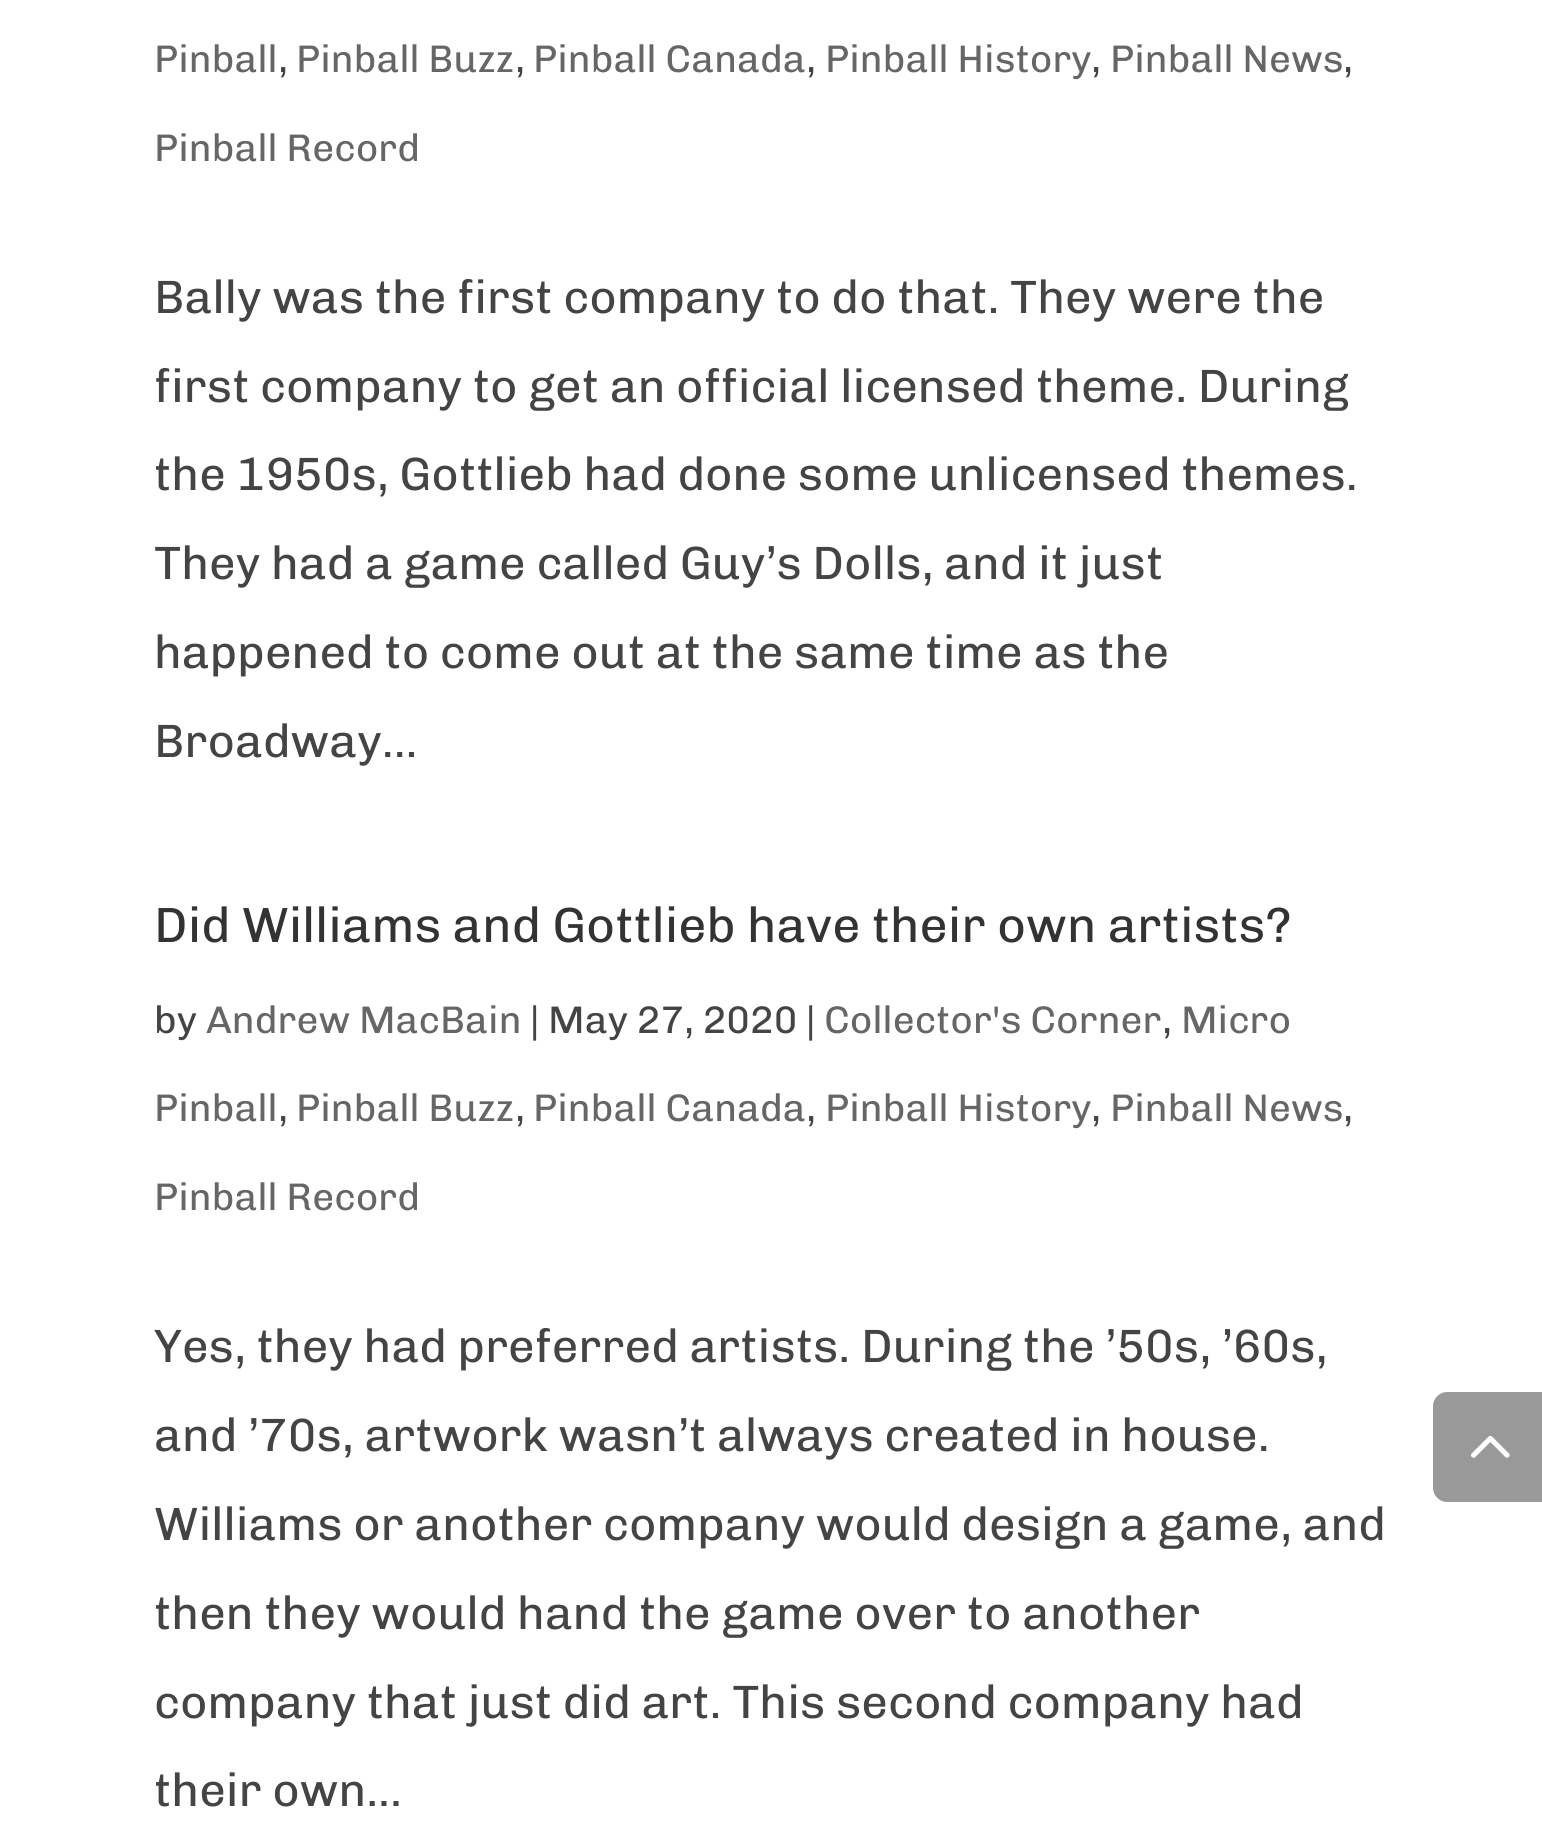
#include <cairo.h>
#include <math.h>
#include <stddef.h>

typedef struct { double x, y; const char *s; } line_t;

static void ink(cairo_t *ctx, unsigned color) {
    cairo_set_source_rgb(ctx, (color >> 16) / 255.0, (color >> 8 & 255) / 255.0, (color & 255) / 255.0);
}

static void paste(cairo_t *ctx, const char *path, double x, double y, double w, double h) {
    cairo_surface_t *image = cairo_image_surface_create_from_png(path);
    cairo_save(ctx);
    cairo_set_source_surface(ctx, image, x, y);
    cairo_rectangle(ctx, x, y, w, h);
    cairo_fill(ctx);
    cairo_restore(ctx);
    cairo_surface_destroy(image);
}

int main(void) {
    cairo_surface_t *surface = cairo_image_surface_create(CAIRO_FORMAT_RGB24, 1542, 1845);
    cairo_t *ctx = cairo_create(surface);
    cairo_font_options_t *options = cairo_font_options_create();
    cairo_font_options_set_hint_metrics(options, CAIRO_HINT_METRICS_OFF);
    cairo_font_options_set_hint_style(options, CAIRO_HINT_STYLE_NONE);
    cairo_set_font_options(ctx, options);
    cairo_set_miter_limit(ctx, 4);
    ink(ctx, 0xFFFFFF);
    cairo_paint(ctx);
    cairo_select_font_face(ctx, "Chivo", CAIRO_FONT_SLANT_NORMAL, CAIRO_FONT_WEIGHT_NORMAL);
    cairo_set_font_size(ctx, 38.5);
    ink(ctx, 0x666666);
    cairo_move_to(ctx, 154, 72);
    cairo_show_text(ctx, "Pinball");
    ink(ctx, 0x444444);
    cairo_move_to(ctx, 278, 72);
    cairo_show_text(ctx, ",");
    ink(ctx, 0x666666);
    cairo_move_to(ctx, 296, 72);
    cairo_show_text(ctx, "Pinball Buzz");
    ink(ctx, 0x444444);
    cairo_move_to(ctx, 515, 72);
    cairo_show_text(ctx, ",");
    ink(ctx, 0x666666);
    cairo_move_to(ctx, 533, 72);
    cairo_show_text(ctx, "Pinball Canada");
    ink(ctx, 0x444444);
    cairo_move_to(ctx, 806, 72);
    cairo_show_text(ctx, ",");
    ink(ctx, 0x666666);
    cairo_move_to(ctx, 825, 72);
    cairo_show_text(ctx, "Pinball History");
    ink(ctx, 0x444444);
    cairo_move_to(ctx, 1091, 72);
    cairo_show_text(ctx, ",");
    ink(ctx, 0x666666);
    cairo_move_to(ctx, 1110, 72);
    cairo_show_text(ctx, "Pinball News");
    ink(ctx, 0x444444);
    cairo_move_to(ctx, 1343, 72);
    cairo_show_text(ctx, ",");
    ink(ctx, 0x666666);
    cairo_move_to(ctx, 154, 161);
    cairo_show_text(ctx, "Pinball Record");
    cairo_set_font_size(ctx, 46.75);
    ink(ctx, 0x444444);
    {
        static const line_t items[] = {
            {154, 313, "Bally was the first company to do that. They were the"},
            {154, 402, "first company to get an official licensed theme. During"},
            {154, 490, "the 1950s, Gottlieb had done some unlicensed themes."},
            {154, 579, "They had a game called Guy’s Dolls, and it just"},
            {154, 668, "happened to come out at the same time as the"},
            {154, 757, "Broadway..."},
        };
        for (size_t i = 0; i < sizeof items / sizeof *items; i++) {
            cairo_move_to(ctx, items[i].x, items[i].y);
            cairo_show_text(ctx, items[i].s);
        }
    }
    cairo_set_font_size(ctx, 49.5);
    ink(ctx, 0x333333);
    cairo_move_to(ctx, 154, 942);
    cairo_show_text(ctx, "Did Williams and Gottlieb have their own artists?");
    cairo_set_font_size(ctx, 38.5);
    ink(ctx, 0x444444);
    cairo_move_to(ctx, 154, 1033);
    cairo_show_text(ctx, "by");
    ink(ctx, 0x666666);
    cairo_move_to(ctx, 206, 1033);
    cairo_show_text(ctx, "Andrew MacBain");
    ink(ctx, 0x444444);
    cairo_move_to(ctx, 530, 1033);
    cairo_show_text(ctx, "| May 27, 2020 |");
    ink(ctx, 0x666666);
    cairo_move_to(ctx, 824, 1033);
    cairo_show_text(ctx, "Collector's Corner");
    ink(ctx, 0x444444);
    cairo_move_to(ctx, 1162, 1033);
    cairo_show_text(ctx, ",");
    ink(ctx, 0x666666);
    cairo_move_to(ctx, 1181, 1033);
    cairo_show_text(ctx, "Micro");
    cairo_move_to(ctx, 154, 1121);
    cairo_show_text(ctx, "Pinball");
    ink(ctx, 0x444444);
    cairo_move_to(ctx, 278, 1121);
    cairo_show_text(ctx, ",");
    ink(ctx, 0x666666);
    cairo_move_to(ctx, 296, 1121);
    cairo_show_text(ctx, "Pinball Buzz");
    ink(ctx, 0x444444);
    cairo_move_to(ctx, 515, 1121);
    cairo_show_text(ctx, ",");
    ink(ctx, 0x666666);
    cairo_move_to(ctx, 533, 1121);
    cairo_show_text(ctx, "Pinball Canada");
    ink(ctx, 0x444444);
    cairo_move_to(ctx, 806, 1121);
    cairo_show_text(ctx, ",");
    ink(ctx, 0x666666);
    cairo_move_to(ctx, 825, 1121);
    cairo_show_text(ctx, "Pinball History");
    ink(ctx, 0x444444);
    cairo_move_to(ctx, 1091, 1121);
    cairo_show_text(ctx, ",");
    ink(ctx, 0x666666);
    cairo_move_to(ctx, 1110, 1121);
    cairo_show_text(ctx, "Pinball News");
    ink(ctx, 0x444444);
    cairo_move_to(ctx, 1343, 1121);
    cairo_show_text(ctx, ",");
    ink(ctx, 0x666666);
    cairo_move_to(ctx, 154, 1210);
    cairo_show_text(ctx, "Pinball Record");
    cairo_set_font_size(ctx, 46.75);
    ink(ctx, 0x444444);
    {
        static const line_t items[] = {
            {154, 1362, "Yes, they had preferred artists. During the ’50s, ’60s,"},
            {154, 1451, "and ’70s, artwork wasn’t always created in house."},
            {154, 1540, "Williams or another company would design a game, and"},
            {154, 1629, "then they would hand the game over to another"},
            {154, 1718, "company that just did art. This second company had"},
            {154, 1806, "their own..."},
        };
        for (size_t i = 0; i < sizeof items / sizeof *items; i++) {
            cairo_move_to(ctx, items[i].x, items[i].y);
            cairo_show_text(ctx, items[i].s);
        }
    }
    ink(ctx, 0x999999);
    cairo_new_path(ctx);
    cairo_move_to(ctx, 1447, 1392);
    cairo_line_to(ctx, 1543, 1392);
    cairo_line_to(ctx, 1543, 1502);
    cairo_line_to(ctx, 1447, 1502);
    cairo_curve_to(ctx, 1439.5, 1502, 1433, 1495.5, 1433, 1488);
    cairo_line_to(ctx, 1433, 1406);
    cairo_curve_to(ctx, 1433, 1398.5, 1439.5, 1392, 1447, 1392);
    cairo_close_path(ctx);
    cairo_fill(ctx);
    paste(ctx, "media/1.png", 1471, 1435, 39, 23);
    cairo_surface_write_to_png(surface, "image.png");
    cairo_font_options_destroy(options);
    cairo_destroy(ctx);
    cairo_surface_destroy(surface);
    return 0;
}
